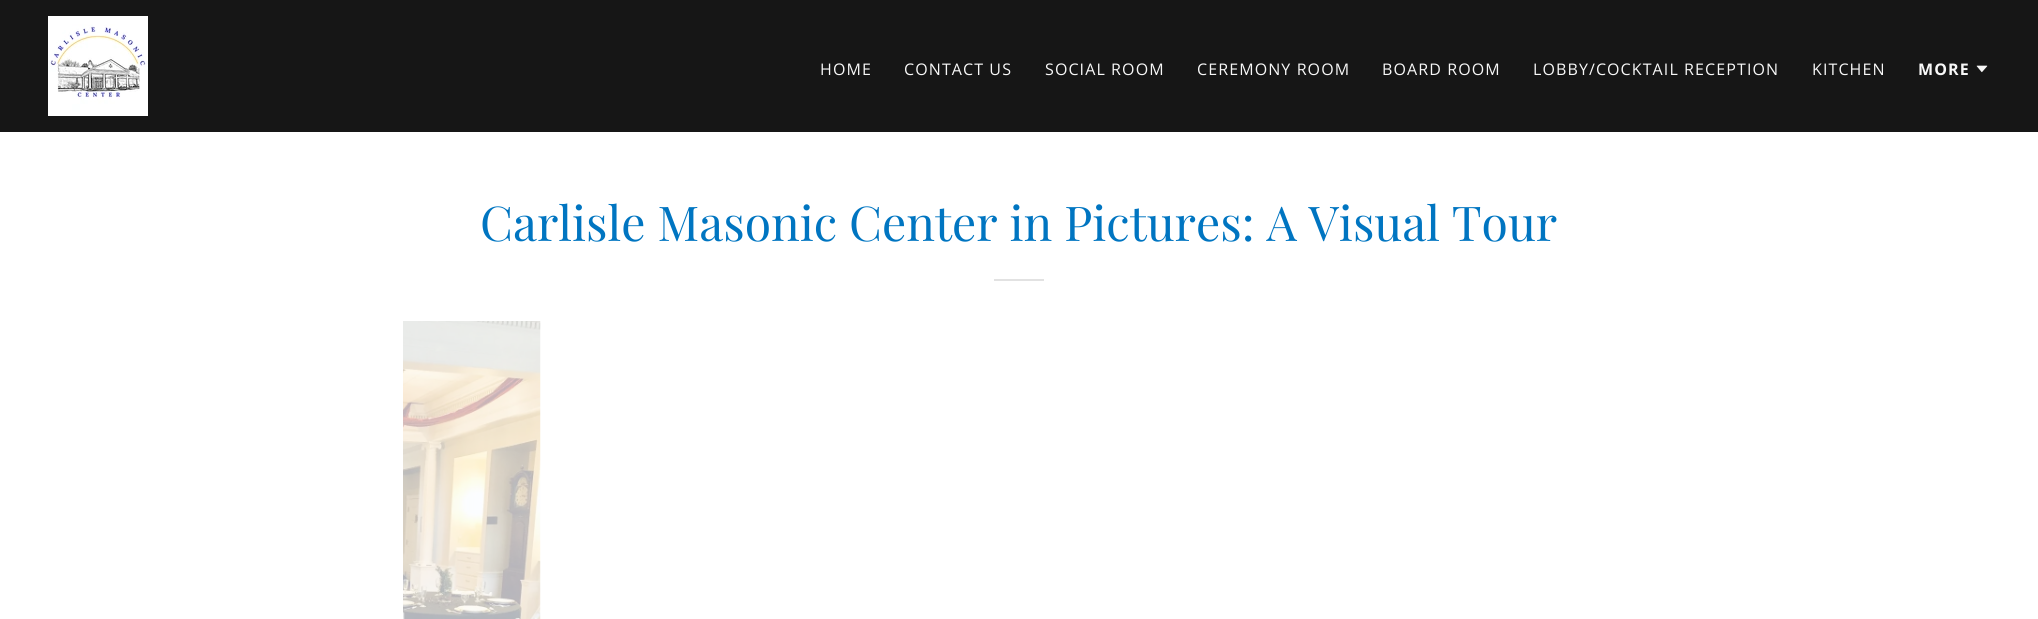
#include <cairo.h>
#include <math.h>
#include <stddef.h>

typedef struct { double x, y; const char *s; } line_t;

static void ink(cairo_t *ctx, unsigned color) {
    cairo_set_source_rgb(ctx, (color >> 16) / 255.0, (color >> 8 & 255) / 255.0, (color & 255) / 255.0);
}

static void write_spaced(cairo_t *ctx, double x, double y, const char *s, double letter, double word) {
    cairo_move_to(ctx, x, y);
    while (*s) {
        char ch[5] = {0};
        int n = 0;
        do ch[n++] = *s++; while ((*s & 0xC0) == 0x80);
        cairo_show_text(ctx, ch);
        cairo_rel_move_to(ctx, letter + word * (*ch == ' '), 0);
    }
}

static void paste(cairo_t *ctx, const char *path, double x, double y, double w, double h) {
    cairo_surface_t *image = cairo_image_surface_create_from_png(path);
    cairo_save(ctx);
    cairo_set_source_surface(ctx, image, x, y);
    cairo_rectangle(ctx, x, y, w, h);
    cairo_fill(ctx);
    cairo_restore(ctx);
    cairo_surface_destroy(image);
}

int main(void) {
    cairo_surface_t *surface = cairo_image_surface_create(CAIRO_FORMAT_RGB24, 2038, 619);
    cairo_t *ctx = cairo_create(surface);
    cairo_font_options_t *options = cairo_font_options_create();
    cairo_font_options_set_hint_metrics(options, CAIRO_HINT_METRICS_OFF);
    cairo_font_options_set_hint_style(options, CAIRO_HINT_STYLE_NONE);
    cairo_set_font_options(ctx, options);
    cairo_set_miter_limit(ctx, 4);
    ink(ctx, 0x161616);
    cairo_paint(ctx);
    paste(ctx, "media/1.png", 48, 16, 100, 100);
    cairo_select_font_face(ctx, "Open Sans", CAIRO_FONT_SLANT_NORMAL, CAIRO_FONT_WEIGHT_NORMAL);
    cairo_set_font_size(ctx, 16);
    ink(ctx, 0xF7F7F7);
    {
        static const line_t items[] = {
            {820, 75, "HOME"},
            {904, 75, "CONTACT US"},
            {1045, 75, "SOCIAL ROOM"},
            {1197, 75, "CEREMONY ROOM"},
            {1382, 75, "BOARD ROOM"},
            {1533, 75, "LOBBY/COCKTAIL RECEPTION"},
            {1812, 75, "KITCHEN"},
        };
        for (size_t i = 0; i < sizeof items / sizeof *items; i++) {
            write_spaced(ctx, items[i].x, items[i].y, items[i].s, 1.1, 0);
        }
    }
    cairo_select_font_face(ctx, "Open Sans", CAIRO_FONT_SLANT_NORMAL, CAIRO_FONT_WEIGHT_BOLD);
    write_spaced(ctx, 1918, 75, "MORE", 1.1, 0);
    paste(ctx, "media/2.png", 1976, 65, 12, 8);
    ink(ctx, 0xFFFFFF);
    cairo_rectangle(ctx, 0, 132, 2038, 487);
    cairo_fill(ctx);
    cairo_select_font_face(ctx, "Playfair Display", CAIRO_FONT_SLANT_NORMAL, CAIRO_FONT_WEIGHT_NORMAL);
    cairo_set_font_size(ctx, 48);
    ink(ctx, 0x0075C1);
    cairo_move_to(ctx, 480, 241);
    cairo_show_text(ctx, "Carlisle Masonic Center in Pictures: A Visual Tour");
    ink(ctx, 0xE2E2E2);
    cairo_rectangle(ctx, 994, 279, 50, 2);
    cairo_fill(ctx);
    paste(ctx, "media/3.png", 403, 321, 138, 298);
    cairo_surface_write_to_png(surface, "image.png");
    cairo_font_options_destroy(options);
    cairo_destroy(ctx);
    cairo_surface_destroy(surface);
    return 0;
}
